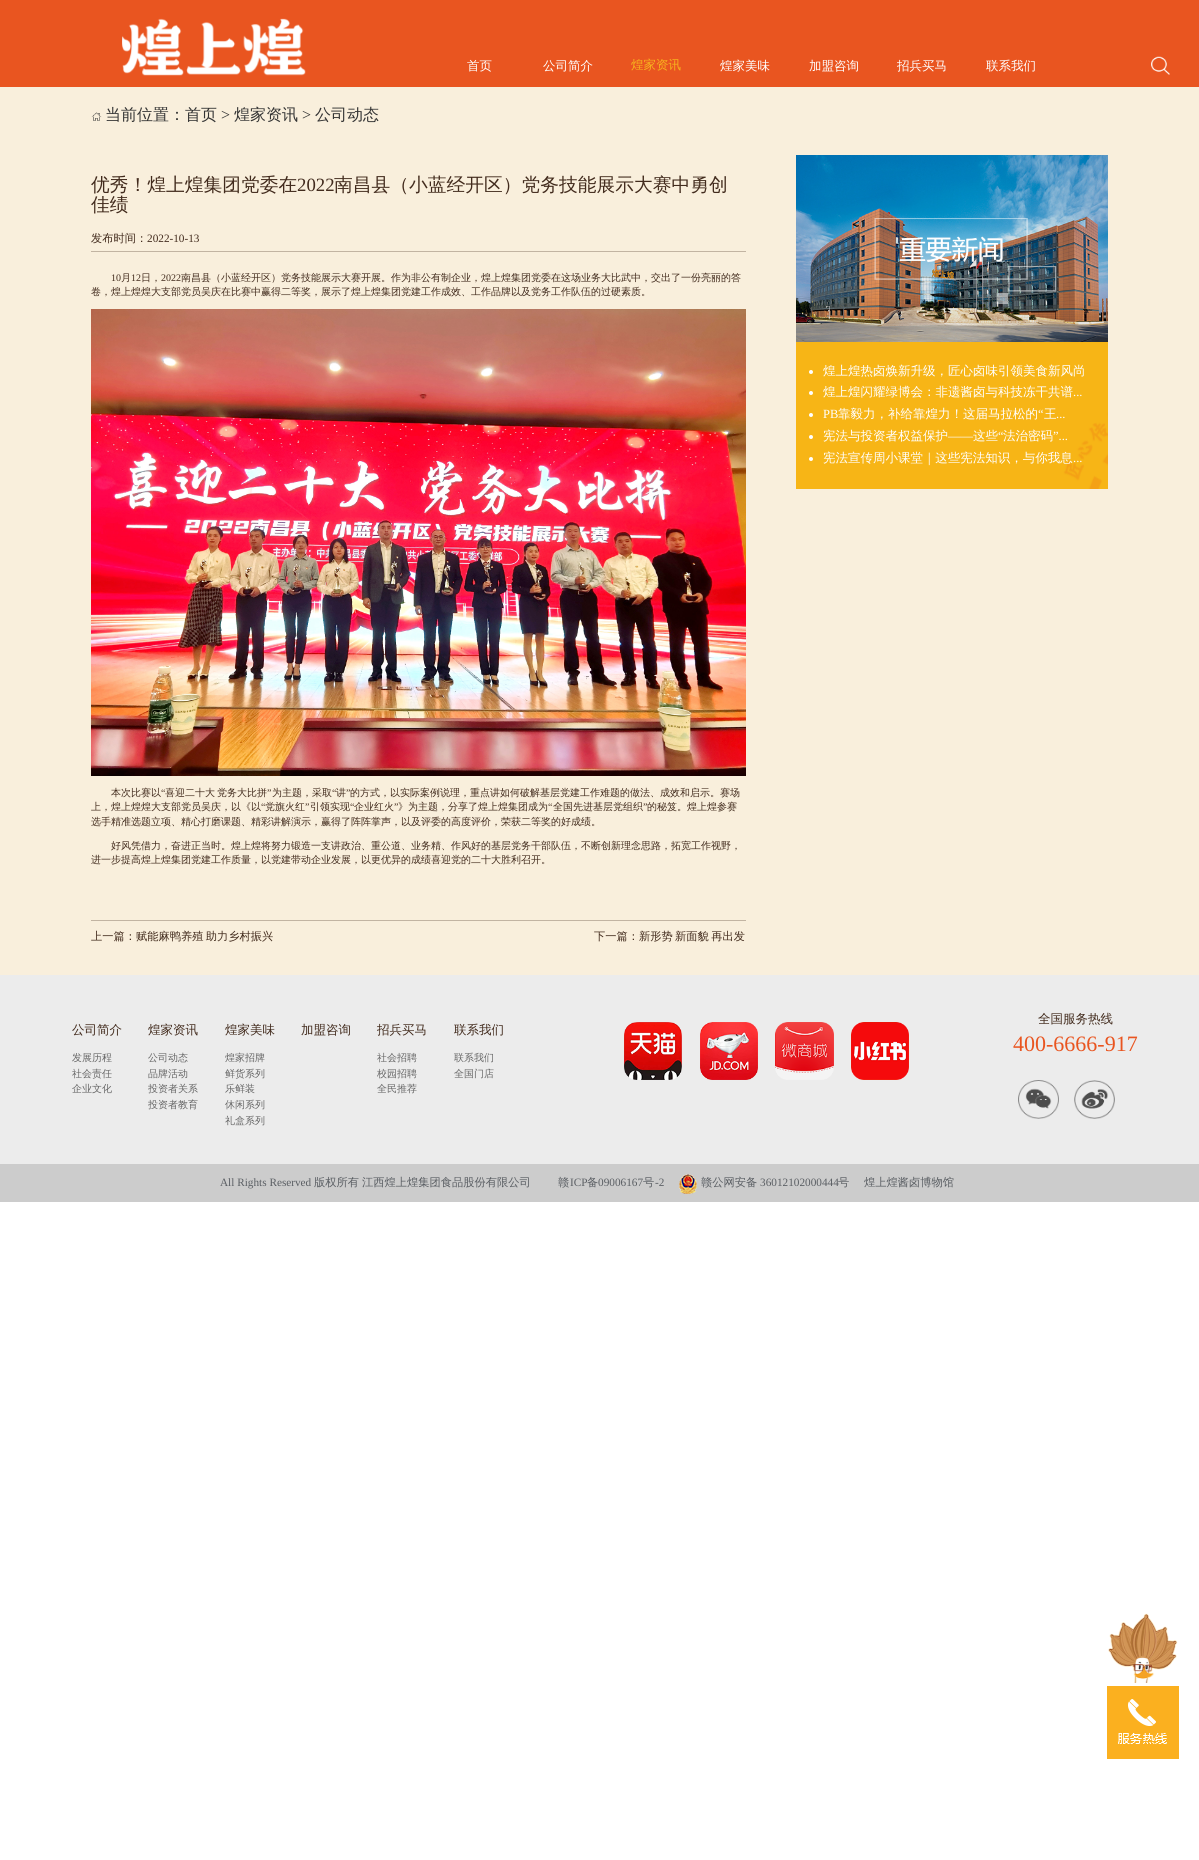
#include <cairo.h>
#include <math.h>
#include <stddef.h>

typedef struct { double x, y; const char *s; } line_t;

static void ink(cairo_t *ctx, unsigned color) {
    cairo_set_source_rgb(ctx, (color >> 16) / 255.0, (color >> 8 & 255) / 255.0, (color & 255) / 255.0);
}

static void write_spaced(cairo_t *ctx, double x, double y, const char *s, double letter, double word) {
    cairo_move_to(ctx, x, y);
    while (*s) {
        char ch[5] = {0};
        int n = 0;
        do ch[n++] = *s++; while ((*s & 0xC0) == 0x80);
        cairo_show_text(ctx, ch);
        cairo_rel_move_to(ctx, letter + word * (*ch == ' '), 0);
    }
}

static void paste(cairo_t *ctx, const char *path, double x, double y, double w, double h) {
    cairo_surface_t *image = cairo_image_surface_create_from_png(path);
    cairo_save(ctx);
    cairo_set_source_surface(ctx, image, x, y);
    cairo_rectangle(ctx, x, y, w, h);
    cairo_fill(ctx);
    cairo_restore(ctx);
    cairo_surface_destroy(image);
}

int main(void) {
    cairo_surface_t *surface = cairo_image_surface_create(CAIRO_FORMAT_RGB24, 1199, 1860);
    cairo_t *ctx = cairo_create(surface);
    cairo_font_options_t *options = cairo_font_options_create();
    cairo_font_options_set_hint_metrics(options, CAIRO_HINT_METRICS_OFF);
    cairo_font_options_set_hint_style(options, CAIRO_HINT_STYLE_NONE);
    cairo_set_font_options(ctx, options);
    cairo_set_miter_limit(ctx, 4);
    ink(ctx, 0xFFFFFF);
    cairo_paint(ctx);
    ink(ctx, 0xE95520);
    cairo_rectangle(ctx, 0, 0, 1199, 87);
    cairo_fill(ctx);
    paste(ctx, "media/1.png", 122, 18, 184, 58);
    cairo_select_font_face(ctx, "WenQuanYi Zen Hei Medium", CAIRO_FONT_SLANT_NORMAL, CAIRO_FONT_WEIGHT_NORMAL);
    cairo_set_font_size(ctx, 12.5);
    ink(ctx, 0xFFFFFF);
    cairo_move_to(ctx, 467, 70);
    cairo_show_text(ctx, "首页");
    cairo_move_to(ctx, 543, 70);
    cairo_show_text(ctx, "公司简介");
    ink(ctx, 0xF7B41D);
    cairo_move_to(ctx, 631, 69);
    cairo_show_text(ctx, "煌家资讯");
    ink(ctx, 0xFFFFFF);
    {
        static const line_t items[] = {
            {720, 70, "煌家美味"},
            {809, 70, "加盟咨询"},
            {897, 70, "招兵买马"},
            {986, 70, "联系我们"},
        };
        for (size_t i = 0; i < sizeof items / sizeof *items; i++) {
            cairo_move_to(ctx, items[i].x, items[i].y);
            cairo_show_text(ctx, items[i].s);
        }
    }
    paste(ctx, "media/2.png", 1151, 56, 19, 19);
    ink(ctx, 0xF9EFDC);
    cairo_rectangle(ctx, 0, 87, 1199, 888);
    cairo_fill(ctx);
    paste(ctx, "media/3.png", 91, 112, 11, 9);
    cairo_set_font_size(ctx, 16);
    ink(ctx, 0x333333);
    cairo_move_to(ctx, 105, 120);
    cairo_show_text(ctx, "当前位置：首页");
    cairo_select_font_face(ctx, "Liberation Serif", CAIRO_FONT_SLANT_NORMAL, CAIRO_FONT_WEIGHT_NORMAL);
    cairo_move_to(ctx, 221, 120);
    cairo_show_text(ctx, ">");
    cairo_select_font_face(ctx, "WenQuanYi Zen Hei Medium", CAIRO_FONT_SLANT_NORMAL, CAIRO_FONT_WEIGHT_NORMAL);
    cairo_move_to(ctx, 234, 120);
    cairo_show_text(ctx, "煌家资讯");
    cairo_select_font_face(ctx, "Liberation Serif", CAIRO_FONT_SLANT_NORMAL, CAIRO_FONT_WEIGHT_NORMAL);
    cairo_move_to(ctx, 302, 120);
    cairo_show_text(ctx, ">");
    cairo_select_font_face(ctx, "WenQuanYi Zen Hei Medium", CAIRO_FONT_SLANT_NORMAL, CAIRO_FONT_WEIGHT_NORMAL);
    cairo_move_to(ctx, 315, 120);
    cairo_show_text(ctx, "公司动态");
    ink(ctx, 0xC2B4A2);
    cairo_rectangle(ctx, 91, 920, 655, 1);
    cairo_fill(ctx);
    cairo_set_font_size(ctx, 18.75);
    ink(ctx, 0x422B1D);
    cairo_move_to(ctx, 91, 191);
    cairo_show_text(ctx, "优秀！煌上煌集团党委在");
    cairo_select_font_face(ctx, "Liberation Serif", CAIRO_FONT_SLANT_NORMAL, CAIRO_FONT_WEIGHT_NORMAL);
    cairo_move_to(ctx, 297, 191);
    cairo_show_text(ctx, "2022");
    cairo_select_font_face(ctx, "WenQuanYi Zen Hei Medium", CAIRO_FONT_SLANT_NORMAL, CAIRO_FONT_WEIGHT_NORMAL);
    cairo_move_to(ctx, 334, 191);
    cairo_show_text(ctx, "南昌县（小蓝经开区）党务技能展示大赛中勇创");
    cairo_move_to(ctx, 91, 211);
    cairo_show_text(ctx, "佳绩");
    ink(ctx, 0xC2B4A2);
    cairo_rectangle(ctx, 91, 251, 655, 1);
    cairo_fill(ctx);
    cairo_set_font_size(ctx, 11.25);
    ink(ctx, 0x422B1D);
    cairo_move_to(ctx, 91, 242);
    cairo_show_text(ctx, "发布时间：");
    cairo_select_font_face(ctx, "Liberation Serif", CAIRO_FONT_SLANT_NORMAL, CAIRO_FONT_WEIGHT_NORMAL);
    cairo_move_to(ctx, 147, 242);
    cairo_show_text(ctx, "2022-10-13");
    cairo_set_font_size(ctx, 10);
    cairo_move_to(ctx, 111, 281);
    cairo_show_text(ctx, "10");
    cairo_select_font_face(ctx, "WenQuanYi Zen Hei Medium", CAIRO_FONT_SLANT_NORMAL, CAIRO_FONT_WEIGHT_NORMAL);
    cairo_move_to(ctx, 121, 281);
    cairo_show_text(ctx, "月");
    cairo_select_font_face(ctx, "Liberation Serif", CAIRO_FONT_SLANT_NORMAL, CAIRO_FONT_WEIGHT_NORMAL);
    cairo_move_to(ctx, 131, 281);
    cairo_show_text(ctx, "12");
    cairo_select_font_face(ctx, "WenQuanYi Zen Hei Medium", CAIRO_FONT_SLANT_NORMAL, CAIRO_FONT_WEIGHT_NORMAL);
    cairo_move_to(ctx, 141, 281);
    cairo_show_text(ctx, "日，");
    cairo_select_font_face(ctx, "Liberation Serif", CAIRO_FONT_SLANT_NORMAL, CAIRO_FONT_WEIGHT_NORMAL);
    cairo_move_to(ctx, 161, 281);
    cairo_show_text(ctx, "2022");
    cairo_select_font_face(ctx, "WenQuanYi Zen Hei Medium", CAIRO_FONT_SLANT_NORMAL, CAIRO_FONT_WEIGHT_NORMAL);
    cairo_move_to(ctx, 181, 281);
    cairo_show_text(ctx, "南昌县（小蓝经开区）党务技能展示大赛开展。作为非公有制企业，煌上煌集团党委在这场业务大比武中，交出了一份亮丽的答");
    cairo_move_to(ctx, 91, 295);
    cairo_show_text(ctx, "卷，煌上煌煌大支部党员吴庆在比赛中赢得二等奖，展示了煌上煌集团党建工作成效、工作品牌以及党务工作队伍的过硬素质。");
    paste(ctx, "media/4.png", 91, 309, 655, 467);
    cairo_move_to(ctx, 111, 796);
    cairo_show_text(ctx, "本次比赛以");
    cairo_select_font_face(ctx, "Liberation Serif", CAIRO_FONT_SLANT_NORMAL, CAIRO_FONT_WEIGHT_NORMAL);
    cairo_move_to(ctx, 161, 796);
    cairo_show_text(ctx, "“");
    cairo_select_font_face(ctx, "WenQuanYi Zen Hei Medium", CAIRO_FONT_SLANT_NORMAL, CAIRO_FONT_WEIGHT_NORMAL);
    write_spaced(ctx, 165, 796, "喜迎二十大 党务大比拼", 0, -1);
    cairo_select_font_face(ctx, "Liberation Serif", CAIRO_FONT_SLANT_NORMAL, CAIRO_FONT_WEIGHT_NORMAL);
    cairo_move_to(ctx, 267, 796);
    cairo_show_text(ctx, "”");
    cairo_select_font_face(ctx, "WenQuanYi Zen Hei Medium", CAIRO_FONT_SLANT_NORMAL, CAIRO_FONT_WEIGHT_NORMAL);
    cairo_move_to(ctx, 272, 796);
    cairo_show_text(ctx, "为主题，采取");
    cairo_select_font_face(ctx, "Liberation Serif", CAIRO_FONT_SLANT_NORMAL, CAIRO_FONT_WEIGHT_NORMAL);
    cairo_move_to(ctx, 332, 796);
    cairo_show_text(ctx, "“");
    cairo_select_font_face(ctx, "WenQuanYi Zen Hei Medium", CAIRO_FONT_SLANT_NORMAL, CAIRO_FONT_WEIGHT_NORMAL);
    cairo_move_to(ctx, 336, 796);
    cairo_show_text(ctx, "讲");
    cairo_select_font_face(ctx, "Liberation Serif", CAIRO_FONT_SLANT_NORMAL, CAIRO_FONT_WEIGHT_NORMAL);
    cairo_move_to(ctx, 346, 796);
    cairo_show_text(ctx, "”");
    cairo_select_font_face(ctx, "WenQuanYi Zen Hei Medium", CAIRO_FONT_SLANT_NORMAL, CAIRO_FONT_WEIGHT_NORMAL);
    cairo_move_to(ctx, 350, 796);
    cairo_show_text(ctx, "的方式，以实际案例说理，重点讲如何破解基层党建工作难题的做法、成效和启示。赛场");
    cairo_move_to(ctx, 91, 810);
    cairo_show_text(ctx, "上，煌上煌煌大支部党员吴庆，以《以");
    cairo_select_font_face(ctx, "Liberation Serif", CAIRO_FONT_SLANT_NORMAL, CAIRO_FONT_WEIGHT_NORMAL);
    cairo_move_to(ctx, 261, 810);
    cairo_show_text(ctx, "“");
    cairo_select_font_face(ctx, "WenQuanYi Zen Hei Medium", CAIRO_FONT_SLANT_NORMAL, CAIRO_FONT_WEIGHT_NORMAL);
    cairo_move_to(ctx, 265, 810);
    cairo_show_text(ctx, "党旗火红");
    cairo_select_font_face(ctx, "Liberation Serif", CAIRO_FONT_SLANT_NORMAL, CAIRO_FONT_WEIGHT_NORMAL);
    cairo_move_to(ctx, 305, 810);
    cairo_show_text(ctx, "”");
    cairo_select_font_face(ctx, "WenQuanYi Zen Hei Medium", CAIRO_FONT_SLANT_NORMAL, CAIRO_FONT_WEIGHT_NORMAL);
    cairo_move_to(ctx, 310, 810);
    cairo_show_text(ctx, "引领实现");
    cairo_select_font_face(ctx, "Liberation Serif", CAIRO_FONT_SLANT_NORMAL, CAIRO_FONT_WEIGHT_NORMAL);
    cairo_move_to(ctx, 350, 810);
    cairo_show_text(ctx, "“");
    cairo_select_font_face(ctx, "WenQuanYi Zen Hei Medium", CAIRO_FONT_SLANT_NORMAL, CAIRO_FONT_WEIGHT_NORMAL);
    cairo_move_to(ctx, 354, 810);
    cairo_show_text(ctx, "企业红火");
    cairo_select_font_face(ctx, "Liberation Serif", CAIRO_FONT_SLANT_NORMAL, CAIRO_FONT_WEIGHT_NORMAL);
    cairo_move_to(ctx, 394, 810);
    cairo_show_text(ctx, "”");
    cairo_select_font_face(ctx, "WenQuanYi Zen Hei Medium", CAIRO_FONT_SLANT_NORMAL, CAIRO_FONT_WEIGHT_NORMAL);
    cairo_move_to(ctx, 398, 810);
    cairo_show_text(ctx, "》为主题，分享了煌上煌集团成为");
    cairo_select_font_face(ctx, "Liberation Serif", CAIRO_FONT_SLANT_NORMAL, CAIRO_FONT_WEIGHT_NORMAL);
    cairo_move_to(ctx, 548, 810);
    cairo_show_text(ctx, "“");
    cairo_select_font_face(ctx, "WenQuanYi Zen Hei Medium", CAIRO_FONT_SLANT_NORMAL, CAIRO_FONT_WEIGHT_NORMAL);
    cairo_move_to(ctx, 553, 810);
    cairo_show_text(ctx, "全国先进基层党组织");
    cairo_select_font_face(ctx, "Liberation Serif", CAIRO_FONT_SLANT_NORMAL, CAIRO_FONT_WEIGHT_NORMAL);
    cairo_move_to(ctx, 643, 810);
    cairo_show_text(ctx, "”");
    cairo_select_font_face(ctx, "WenQuanYi Zen Hei Medium", CAIRO_FONT_SLANT_NORMAL, CAIRO_FONT_WEIGHT_NORMAL);
    {
        static const line_t items[] = {
            {647, 810, "的秘笈。煌上煌参赛"},
            {91, 825, "选手精准选题立项、精心打磨课题、精彩讲解演示，赢得了阵阵掌声，以及评委的高度评价，荣获二等奖的好成绩。"},
            {111, 849, "好风凭借力，奋进正当时。煌上煌将努力锻造一支讲政治、重公道、业务精、作风好的基层党务干部队伍，不断创新理念思路，拓宽工作视野，"},
            {91, 863, "进一步提高煌上煌集团党建工作质量，以党建带动企业发展，以更优异的成绩喜迎党的二十大胜利召开。"},
        };
        for (size_t i = 0; i < sizeof items / sizeof *items; i++) {
            cairo_move_to(ctx, items[i].x, items[i].y);
            cairo_show_text(ctx, items[i].s);
        }
    }
    paste(ctx, "media/5.png", 796, 155, 312, 187);
    paste(ctx, "media/6.png", 796, 342, 312, 147);
    ink(ctx, 0xFFFFFF);
    cairo_arc(ctx, 811, 372, 2, 0, 2 * M_PI);
    cairo_fill(ctx);
    cairo_set_font_size(ctx, 12.5);
    cairo_move_to(ctx, 823, 375);
    cairo_show_text(ctx, "煌上煌热卤焕新升级，匠心卤味引领美食新风尚");
    cairo_new_path(ctx);
    cairo_arc(ctx, 811, 393, 2, 0, 2 * M_PI);
    cairo_fill(ctx);
    cairo_move_to(ctx, 823, 396);
    cairo_show_text(ctx, "煌上煌闪耀绿博会：非遗酱卤与科技冻干共谱");
    cairo_select_font_face(ctx, "Liberation Serif", CAIRO_FONT_SLANT_NORMAL, CAIRO_FONT_WEIGHT_NORMAL);
    cairo_move_to(ctx, 1073, 396);
    cairo_show_text(ctx, "...");
    cairo_move_to(ctx, 823, 418);
    cairo_show_text(ctx, "PB");
    cairo_select_font_face(ctx, "WenQuanYi Zen Hei Medium", CAIRO_FONT_SLANT_NORMAL, CAIRO_FONT_WEIGHT_NORMAL);
    cairo_move_to(ctx, 838, 418);
    cairo_show_text(ctx, "靠毅力，补给靠煌力！这届马拉松的");
    cairo_select_font_face(ctx, "Liberation Serif", CAIRO_FONT_SLANT_NORMAL, CAIRO_FONT_WEIGHT_NORMAL);
    cairo_move_to(ctx, 1038, 418);
    cairo_show_text(ctx, "“");
    cairo_select_font_face(ctx, "WenQuanYi Zen Hei Medium", CAIRO_FONT_SLANT_NORMAL, CAIRO_FONT_WEIGHT_NORMAL);
    cairo_move_to(ctx, 1044, 418);
    cairo_show_text(ctx, "王");
    cairo_new_path(ctx);
    cairo_arc(ctx, 811, 415, 2, 0, 2 * M_PI);
    cairo_fill(ctx);
    cairo_select_font_face(ctx, "Liberation Serif", CAIRO_FONT_SLANT_NORMAL, CAIRO_FONT_WEIGHT_NORMAL);
    cairo_move_to(ctx, 1056, 418);
    cairo_show_text(ctx, "...");
    cairo_new_path(ctx);
    cairo_arc(ctx, 811, 437, 2, 0, 2 * M_PI);
    cairo_fill(ctx);
    cairo_select_font_face(ctx, "WenQuanYi Zen Hei Medium", CAIRO_FONT_SLANT_NORMAL, CAIRO_FONT_WEIGHT_NORMAL);
    cairo_move_to(ctx, 823, 440);
    cairo_show_text(ctx, "宪法与投资者权益保护");
    cairo_select_font_face(ctx, "Liberation Serif", CAIRO_FONT_SLANT_NORMAL, CAIRO_FONT_WEIGHT_NORMAL);
    cairo_move_to(ctx, 948, 440);
    cairo_show_text(ctx, "——");
    cairo_select_font_face(ctx, "WenQuanYi Zen Hei Medium", CAIRO_FONT_SLANT_NORMAL, CAIRO_FONT_WEIGHT_NORMAL);
    cairo_move_to(ctx, 973, 440);
    cairo_show_text(ctx, "这些");
    cairo_select_font_face(ctx, "Liberation Serif", CAIRO_FONT_SLANT_NORMAL, CAIRO_FONT_WEIGHT_NORMAL);
    cairo_move_to(ctx, 998, 440);
    cairo_show_text(ctx, "“");
    cairo_select_font_face(ctx, "WenQuanYi Zen Hei Medium", CAIRO_FONT_SLANT_NORMAL, CAIRO_FONT_WEIGHT_NORMAL);
    cairo_move_to(ctx, 1003, 440);
    cairo_show_text(ctx, "法治密码");
    cairo_select_font_face(ctx, "Liberation Serif", CAIRO_FONT_SLANT_NORMAL, CAIRO_FONT_WEIGHT_NORMAL);
    cairo_move_to(ctx, 1053, 440);
    cairo_show_text(ctx, "”...");
    cairo_new_path(ctx);
    cairo_arc(ctx, 811, 459, 2, 0, 2 * M_PI);
    cairo_fill(ctx);
    cairo_select_font_face(ctx, "WenQuanYi Zen Hei Medium", CAIRO_FONT_SLANT_NORMAL, CAIRO_FONT_WEIGHT_NORMAL);
    cairo_move_to(ctx, 823, 462);
    cairo_show_text(ctx, "宪法宣传周小课堂｜这些宪法知识，与你我息");
    cairo_select_font_face(ctx, "Liberation Serif", CAIRO_FONT_SLANT_NORMAL, CAIRO_FONT_WEIGHT_NORMAL);
    cairo_move_to(ctx, 1073, 462);
    cairo_show_text(ctx, "...");
    cairo_select_font_face(ctx, "WenQuanYi Zen Hei Medium", CAIRO_FONT_SLANT_NORMAL, CAIRO_FONT_WEIGHT_NORMAL);
    cairo_set_font_size(ctx, 11.25);
    ink(ctx, 0x422B1D);
    cairo_move_to(ctx, 91, 940);
    cairo_show_text(ctx, "上一篇：");
    write_spaced(ctx, 136, 940, "赋能麻鸭养殖 助力乡村振兴", 0, -1);
    cairo_move_to(ctx, 594, 940);
    cairo_show_text(ctx, "下一篇：");
    write_spaced(ctx, 639, 940, "新形势 新面貌 再出发", 0, -1);
    ink(ctx, 0xECECEC);
    cairo_rectangle(ctx, 0, 975, 1199, 189);
    cairo_fill(ctx);
    cairo_set_font_size(ctx, 12.5);
    ink(ctx, 0x422B1D);
    cairo_move_to(ctx, 72, 1034);
    cairo_show_text(ctx, "公司简介");
    cairo_set_font_size(ctx, 10);
    ink(ctx, 0x666666);
    {
        static const line_t items[] = {
            {72, 1061, "发展历程"},
            {72, 1077, "社会责任"},
            {72, 1092, "企业文化"},
        };
        for (size_t i = 0; i < sizeof items / sizeof *items; i++) {
            cairo_move_to(ctx, items[i].x, items[i].y);
            cairo_show_text(ctx, items[i].s);
        }
    }
    cairo_set_font_size(ctx, 12.5);
    ink(ctx, 0x422B1D);
    cairo_move_to(ctx, 148, 1034);
    cairo_show_text(ctx, "煌家资讯");
    cairo_set_font_size(ctx, 10);
    ink(ctx, 0x666666);
    {
        static const line_t items[] = {
            {148, 1061, "公司动态"},
            {148, 1077, "品牌活动"},
            {148, 1092, "投资者关系"},
            {148, 1108, "投资者教育"},
        };
        for (size_t i = 0; i < sizeof items / sizeof *items; i++) {
            cairo_move_to(ctx, items[i].x, items[i].y);
            cairo_show_text(ctx, items[i].s);
        }
    }
    cairo_set_font_size(ctx, 12.5);
    ink(ctx, 0x422B1D);
    cairo_move_to(ctx, 225, 1034);
    cairo_show_text(ctx, "煌家美味");
    cairo_set_font_size(ctx, 10);
    ink(ctx, 0x666666);
    {
        static const line_t items[] = {
            {225, 1061, "煌家招牌"},
            {225, 1077, "鲜货系列"},
            {225, 1092, "乐鲜装"},
            {225, 1108, "休闲系列"},
            {225, 1124, "礼盒系列"},
        };
        for (size_t i = 0; i < sizeof items / sizeof *items; i++) {
            cairo_move_to(ctx, items[i].x, items[i].y);
            cairo_show_text(ctx, items[i].s);
        }
    }
    cairo_set_font_size(ctx, 12.5);
    ink(ctx, 0x422B1D);
    cairo_move_to(ctx, 301, 1034);
    cairo_show_text(ctx, "加盟咨询");
    cairo_move_to(ctx, 377, 1034);
    cairo_show_text(ctx, "招兵买马");
    cairo_set_font_size(ctx, 10);
    ink(ctx, 0x666666);
    {
        static const line_t items[] = {
            {377, 1061, "社会招聘"},
            {377, 1077, "校园招聘"},
            {377, 1092, "全民推荐"},
        };
        for (size_t i = 0; i < sizeof items / sizeof *items; i++) {
            cairo_move_to(ctx, items[i].x, items[i].y);
            cairo_show_text(ctx, items[i].s);
        }
    }
    cairo_set_font_size(ctx, 12.5);
    ink(ctx, 0x422B1D);
    cairo_move_to(ctx, 454, 1034);
    cairo_show_text(ctx, "联系我们");
    cairo_set_font_size(ctx, 10);
    ink(ctx, 0x666666);
    cairo_move_to(ctx, 454, 1061);
    cairo_show_text(ctx, "联系我们");
    cairo_move_to(ctx, 454, 1077);
    cairo_show_text(ctx, "全国门店");
    paste(ctx, "media/7.png", 624, 1022, 58, 58);
    paste(ctx, "media/8.png", 700, 1022, 58, 58);
    paste(ctx, "media/9.png", 775, 1022, 59, 58);
    paste(ctx, "media/10.png", 851, 1022, 58, 58);
    cairo_set_font_size(ctx, 12.5);
    ink(ctx, 0x422B1D);
    cairo_move_to(ctx, 1038, 1023);
    cairo_show_text(ctx, "全国服务热线");
    cairo_select_font_face(ctx, "Liberation Serif", CAIRO_FONT_SLANT_NORMAL, CAIRO_FONT_WEIGHT_NORMAL);
    cairo_set_font_size(ctx, 22);
    ink(ctx, 0xE95520);
    cairo_move_to(ctx, 1013, 1051);
    cairo_show_text(ctx, "400-6666-917");
    paste(ctx, "media/11.png", 1018, 1080, 41, 39);
    paste(ctx, "media/12.png", 1074, 1080, 41, 39);
    ink(ctx, 0xCCCCCC);
    cairo_rectangle(ctx, 0, 1164, 1199, 38);
    cairo_fill(ctx);
    cairo_set_font_size(ctx, 11.25);
    ink(ctx, 0x5A5E63);
    cairo_move_to(ctx, 220, 1186);
    cairo_show_text(ctx, "All Rights Reserved");
    cairo_select_font_face(ctx, "WenQuanYi Zen Hei Medium", CAIRO_FONT_SLANT_NORMAL, CAIRO_FONT_WEIGHT_NORMAL);
    {
        static const line_t items[] = {
            {314, 1186, "版权所有"},
            {362, 1186, "江西煌上煌集团食品股份有限公司"},
            {558, 1186, "赣"},
        };
        for (size_t i = 0; i < sizeof items / sizeof *items; i++) {
            cairo_move_to(ctx, items[i].x, items[i].y);
            cairo_show_text(ctx, items[i].s);
        }
    }
    cairo_select_font_face(ctx, "Liberation Serif", CAIRO_FONT_SLANT_NORMAL, CAIRO_FONT_WEIGHT_NORMAL);
    cairo_move_to(ctx, 570, 1186);
    cairo_show_text(ctx, "ICP");
    cairo_select_font_face(ctx, "WenQuanYi Zen Hei Medium", CAIRO_FONT_SLANT_NORMAL, CAIRO_FONT_WEIGHT_NORMAL);
    cairo_move_to(ctx, 587, 1186);
    cairo_show_text(ctx, "备");
    cairo_select_font_face(ctx, "Liberation Serif", CAIRO_FONT_SLANT_NORMAL, CAIRO_FONT_WEIGHT_NORMAL);
    cairo_move_to(ctx, 598, 1186);
    cairo_show_text(ctx, "09006167");
    cairo_select_font_face(ctx, "WenQuanYi Zen Hei Medium", CAIRO_FONT_SLANT_NORMAL, CAIRO_FONT_WEIGHT_NORMAL);
    cairo_move_to(ctx, 643, 1186);
    cairo_show_text(ctx, "号");
    cairo_select_font_face(ctx, "Liberation Serif", CAIRO_FONT_SLANT_NORMAL, CAIRO_FONT_WEIGHT_NORMAL);
    cairo_move_to(ctx, 655, 1186);
    cairo_show_text(ctx, "-2");
    paste(ctx, "media/13.png", 679, 1174, 18, 20);
    cairo_select_font_face(ctx, "WenQuanYi Zen Hei Medium", CAIRO_FONT_SLANT_NORMAL, CAIRO_FONT_WEIGHT_NORMAL);
    cairo_move_to(ctx, 701, 1186);
    cairo_show_text(ctx, "赣公网安备");
    cairo_select_font_face(ctx, "Liberation Serif", CAIRO_FONT_SLANT_NORMAL, CAIRO_FONT_WEIGHT_NORMAL);
    cairo_move_to(ctx, 760, 1186);
    cairo_show_text(ctx, "36012102000444");
    cairo_select_font_face(ctx, "WenQuanYi Zen Hei Medium", CAIRO_FONT_SLANT_NORMAL, CAIRO_FONT_WEIGHT_NORMAL);
    cairo_move_to(ctx, 838, 1186);
    cairo_show_text(ctx, "号");
    cairo_move_to(ctx, 864, 1186);
    cairo_show_text(ctx, "煌上煌酱卤博物馆");
    paste(ctx, "media/14.png", 1108, 1613, 70, 70);
    ink(ctx, 0xFBB01F);
    cairo_rectangle(ctx, 1107, 1686, 72, 73);
    cairo_fill(ctx);
    paste(ctx, "media/15.png", 1118, 1699, 49, 45);
    cairo_surface_write_to_png(surface, "image.png");
    cairo_font_options_destroy(options);
    cairo_destroy(ctx);
    cairo_surface_destroy(surface);
    return 0;
}
